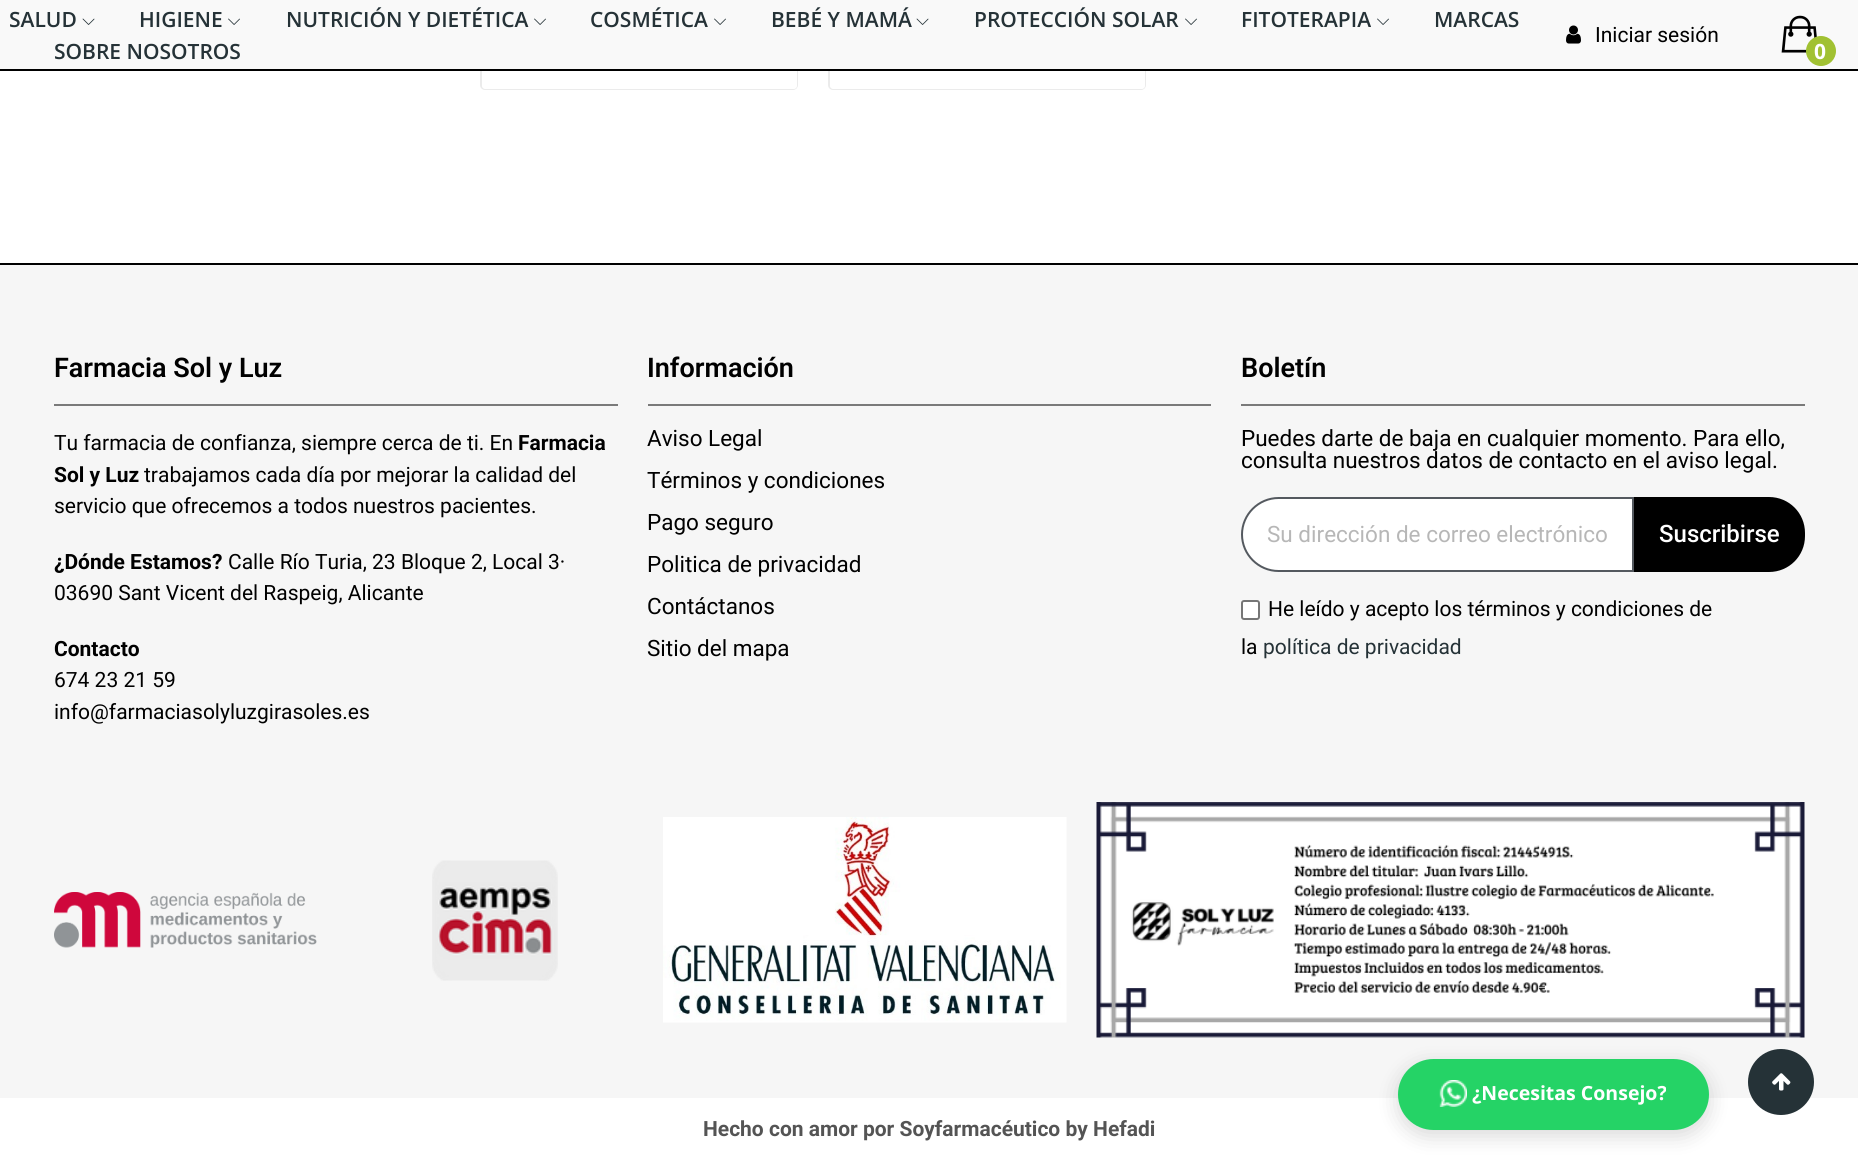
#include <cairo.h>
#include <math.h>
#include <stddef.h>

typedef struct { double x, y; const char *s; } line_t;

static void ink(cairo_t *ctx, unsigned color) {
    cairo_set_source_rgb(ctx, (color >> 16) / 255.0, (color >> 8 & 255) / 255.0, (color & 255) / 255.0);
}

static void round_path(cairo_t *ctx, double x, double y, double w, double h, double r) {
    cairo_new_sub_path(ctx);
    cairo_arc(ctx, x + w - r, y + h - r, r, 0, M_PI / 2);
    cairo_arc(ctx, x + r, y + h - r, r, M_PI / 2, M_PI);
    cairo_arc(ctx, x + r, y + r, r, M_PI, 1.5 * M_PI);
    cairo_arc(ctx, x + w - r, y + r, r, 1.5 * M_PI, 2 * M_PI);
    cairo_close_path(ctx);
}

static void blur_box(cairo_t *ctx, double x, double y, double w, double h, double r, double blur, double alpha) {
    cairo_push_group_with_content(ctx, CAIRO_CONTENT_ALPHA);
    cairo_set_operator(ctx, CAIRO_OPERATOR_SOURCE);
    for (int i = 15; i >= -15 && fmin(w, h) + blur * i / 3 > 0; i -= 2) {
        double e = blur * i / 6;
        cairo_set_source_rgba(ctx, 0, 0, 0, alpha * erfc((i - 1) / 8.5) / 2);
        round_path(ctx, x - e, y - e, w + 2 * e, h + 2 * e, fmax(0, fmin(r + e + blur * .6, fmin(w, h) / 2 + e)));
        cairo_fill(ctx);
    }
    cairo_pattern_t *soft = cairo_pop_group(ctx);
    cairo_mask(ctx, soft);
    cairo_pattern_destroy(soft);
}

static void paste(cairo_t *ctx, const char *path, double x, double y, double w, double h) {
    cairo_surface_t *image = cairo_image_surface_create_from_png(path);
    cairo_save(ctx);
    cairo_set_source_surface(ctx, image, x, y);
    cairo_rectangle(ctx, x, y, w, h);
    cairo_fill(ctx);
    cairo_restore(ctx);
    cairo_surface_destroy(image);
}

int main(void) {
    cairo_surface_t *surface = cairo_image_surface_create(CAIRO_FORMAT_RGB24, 1858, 1159);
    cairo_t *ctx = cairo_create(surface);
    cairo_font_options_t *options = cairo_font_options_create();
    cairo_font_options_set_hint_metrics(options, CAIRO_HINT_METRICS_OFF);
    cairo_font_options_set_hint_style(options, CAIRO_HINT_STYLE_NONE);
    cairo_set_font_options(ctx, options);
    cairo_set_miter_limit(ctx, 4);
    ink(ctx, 0xFFFFFF);
    cairo_paint(ctx);
    round_path(ctx, 481, -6, 316, 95, 4);
    ink(ctx, 0xEBEBEB);
    cairo_stroke(ctx);
    ink(ctx, 0xFFFFFF);
    cairo_new_path(ctx);
    cairo_move_to(ctx, 482, -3);
    cairo_line_to(ctx, 797, -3);
    cairo_line_to(ctx, 797, 86);
    cairo_curve_to(ctx, 797, 87.5, 795.5, 89, 794, 89);
    cairo_line_to(ctx, 485, 89);
    cairo_curve_to(ctx, 483.5, 89, 482, 87.5, 482, 86);
    cairo_close_path(ctx);
    cairo_fill(ctx);
    round_path(ctx, 829, -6, 316, 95, 4);
    ink(ctx, 0xEBEBEB);
    cairo_stroke(ctx);
    ink(ctx, 0xFFFFFF);
    cairo_new_path(ctx);
    cairo_move_to(ctx, 830, -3);
    cairo_line_to(ctx, 1145, -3);
    cairo_line_to(ctx, 1145, 86);
    cairo_curve_to(ctx, 1145, 87.5, 1143.5, 89, 1142, 89);
    cairo_line_to(ctx, 833, 89);
    cairo_curve_to(ctx, 831.5, 89, 830, 87.5, 830, 86);
    cairo_close_path(ctx);
    cairo_fill(ctx);
    ink(ctx, 0xF9F9F9);
    cairo_rectangle(ctx, 0, 0, 1858, 69);
    cairo_fill(ctx);
    ink(ctx, 0x000000);
    cairo_rectangle(ctx, 0, 69, 1858, 2);
    cairo_fill(ctx);
    cairo_select_font_face(ctx, "Open Sans SemiBold", CAIRO_FONT_SLANT_NORMAL, CAIRO_FONT_WEIGHT_NORMAL);
    cairo_set_font_size(ctx, 21);
    ink(ctx, 0x253237);
    cairo_move_to(ctx, 9, 27);
    cairo_show_text(ctx, "SALUD");
    paste(ctx, "media/1.png", 82, 18, 13, 7);
    cairo_move_to(ctx, 139, 27);
    cairo_show_text(ctx, "HIGIENE");
    paste(ctx, "media/2.png", 228, 18, 12, 7);
    cairo_move_to(ctx, 286, 27);
    cairo_show_text(ctx, "NUTRICIÓN Y DIETÉTICA");
    paste(ctx, "media/2.png", 534, 18, 12, 7);
    cairo_move_to(ctx, 590, 27);
    cairo_show_text(ctx, "COSMÉTICA");
    paste(ctx, "media/2.png", 714, 18, 12, 7);
    cairo_move_to(ctx, 771, 27);
    cairo_show_text(ctx, "BEBÉ Y MAMÁ");
    paste(ctx, "media/1.png", 916, 18, 13, 7);
    cairo_move_to(ctx, 974, 27);
    cairo_show_text(ctx, "PROTECCIÓN SOLAR");
    paste(ctx, "media/2.png", 1185, 18, 12, 7);
    cairo_move_to(ctx, 1241, 27);
    cairo_show_text(ctx, "FITOTERAPIA");
    paste(ctx, "media/2.png", 1377, 18, 12, 7);
    cairo_move_to(ctx, 1434, 27);
    cairo_show_text(ctx, "MARCAS");
    cairo_move_to(ctx, 54, 59);
    cairo_show_text(ctx, "SOBRE NOSOTROS");
    paste(ctx, "media/3.png", 1566, 25, 15, 19);
    cairo_select_font_face(ctx, "Roboto", CAIRO_FONT_SLANT_NORMAL, CAIRO_FONT_WEIGHT_NORMAL);
    ink(ctx, 0x000000);
    cairo_move_to(ctx, 1595, 42);
    cairo_show_text(ctx, "Iniciar sesión");
    paste(ctx, "media/4.png", 1781, 15, 36, 38);
    ink(ctx, 0xA1C132);
    cairo_arc(ctx, 1821, 51, 15, 0, 2 * M_PI);
    cairo_fill(ctx);
    cairo_select_font_face(ctx, "Open Sans", CAIRO_FONT_SLANT_NORMAL, CAIRO_FONT_WEIGHT_BOLD);
    ink(ctx, 0xFFFFFF);
    cairo_move_to(ctx, 1814, 59);
    cairo_show_text(ctx, "0");
    ink(ctx, 0xF6F6F6);
    cairo_rectangle(ctx, 0, 265, 1858, 833);
    cairo_fill(ctx);
    ink(ctx, 0x000000);
    cairo_rectangle(ctx, 0, 263, 1858, 2);
    cairo_fill(ctx);
    cairo_select_font_face(ctx, "Roboto SemiBold", CAIRO_FONT_SLANT_NORMAL, CAIRO_FONT_WEIGHT_NORMAL);
    cairo_set_font_size(ctx, 27);
    cairo_move_to(ctx, 54, 377);
    cairo_show_text(ctx, "Farmacia Sol y Luz");
    ink(ctx, 0x7A7A7A);
    cairo_rectangle(ctx, 54, 404, 564, 2);
    cairo_fill(ctx);
    cairo_select_font_face(ctx, "Roboto", CAIRO_FONT_SLANT_NORMAL, CAIRO_FONT_WEIGHT_NORMAL);
    cairo_set_font_size(ctx, 21);
    ink(ctx, 0x000000);
    cairo_move_to(ctx, 54, 450);
    cairo_show_text(ctx, "Tu farmacia de confianza, siempre cerca de ti. En");
    cairo_select_font_face(ctx, "Roboto", CAIRO_FONT_SLANT_NORMAL, CAIRO_FONT_WEIGHT_BOLD);
    cairo_move_to(ctx, 518, 450);
    cairo_show_text(ctx, "Farmacia");
    cairo_move_to(ctx, 54, 482);
    cairo_show_text(ctx, "Sol y Luz");
    cairo_select_font_face(ctx, "Roboto", CAIRO_FONT_SLANT_NORMAL, CAIRO_FONT_WEIGHT_NORMAL);
    cairo_move_to(ctx, 144, 482);
    cairo_show_text(ctx, "trabajamos cada día por mejorar la calidad del");
    cairo_move_to(ctx, 54, 513);
    cairo_show_text(ctx, "servicio que ofrecemos a todos nuestros pacientes.");
    cairo_select_font_face(ctx, "Roboto", CAIRO_FONT_SLANT_NORMAL, CAIRO_FONT_WEIGHT_BOLD);
    cairo_move_to(ctx, 54, 569);
    cairo_show_text(ctx, "¿Dónde Estamos?");
    cairo_select_font_face(ctx, "Roboto", CAIRO_FONT_SLANT_NORMAL, CAIRO_FONT_WEIGHT_NORMAL);
    cairo_move_to(ctx, 228, 569);
    cairo_show_text(ctx, "Calle Río Turia, 23 Bloque 2, Local 3·");
    cairo_move_to(ctx, 54, 600);
    cairo_show_text(ctx, "03690 Sant Vicent del Raspeig, Alicante");
    cairo_select_font_face(ctx, "Roboto", CAIRO_FONT_SLANT_NORMAL, CAIRO_FONT_WEIGHT_BOLD);
    cairo_move_to(ctx, 54, 656);
    cairo_show_text(ctx, "Contacto");
    cairo_select_font_face(ctx, "Roboto", CAIRO_FONT_SLANT_NORMAL, CAIRO_FONT_WEIGHT_NORMAL);
    cairo_move_to(ctx, 54, 687);
    cairo_show_text(ctx, "674 23 21 59");
    cairo_move_to(ctx, 54, 719);
    cairo_show_text(ctx, "info@farmaciasolyluzgirasoles.es");
    cairo_select_font_face(ctx, "Roboto SemiBold", CAIRO_FONT_SLANT_NORMAL, CAIRO_FONT_WEIGHT_NORMAL);
    cairo_set_font_size(ctx, 27);
    cairo_move_to(ctx, 647, 377);
    cairo_show_text(ctx, "Información");
    ink(ctx, 0x7A7A7A);
    cairo_rectangle(ctx, 648, 404, 563, 2);
    cairo_fill(ctx);
    cairo_select_font_face(ctx, "Roboto", CAIRO_FONT_SLANT_NORMAL, CAIRO_FONT_WEIGHT_NORMAL);
    cairo_set_font_size(ctx, 22.5);
    ink(ctx, 0x000000);
    {
        static const line_t items[] = {
            {647, 446, "Aviso Legal"},
            {647, 488, "Términos y condiciones"},
            {647, 530, "Pago seguro"},
            {647, 572, "Politica de privacidad"},
            {647, 614, "Contáctanos"},
            {647, 656, "Sitio del mapa"},
        };
        for (size_t i = 0; i < sizeof items / sizeof *items; i++) {
            cairo_move_to(ctx, items[i].x, items[i].y);
            cairo_show_text(ctx, items[i].s);
        }
    }
    cairo_select_font_face(ctx, "Roboto SemiBold", CAIRO_FONT_SLANT_NORMAL, CAIRO_FONT_WEIGHT_NORMAL);
    cairo_set_font_size(ctx, 27);
    cairo_move_to(ctx, 1241, 377);
    cairo_show_text(ctx, "Boletín");
    ink(ctx, 0x7A7A7A);
    cairo_rectangle(ctx, 1241, 404, 564, 2);
    cairo_fill(ctx);
    cairo_select_font_face(ctx, "Roboto", CAIRO_FONT_SLANT_NORMAL, CAIRO_FONT_WEIGHT_NORMAL);
    cairo_set_font_size(ctx, 22.5);
    ink(ctx, 0x000000);
    cairo_move_to(ctx, 1241, 446);
    cairo_show_text(ctx, "Puedes darte de baja en cualquier momento. Para ello,");
    cairo_move_to(ctx, 1241, 468);
    cairo_show_text(ctx, "consulta nuestros datos de contacto en el aviso legal.");
    ink(ctx, 0xFFFFFF);
    cairo_new_path(ctx);
    cairo_move_to(ctx, 1278.5, 498);
    cairo_line_to(ctx, 1633, 498);
    cairo_line_to(ctx, 1633, 571);
    cairo_line_to(ctx, 1278.5, 571);
    cairo_curve_to(ctx, 1258.5, 571, 1242, 554.5, 1242, 534.5);
    cairo_curve_to(ctx, 1242, 514.5, 1258.5, 498, 1278.5, 498);
    cairo_close_path(ctx);
    cairo_fill_preserve(ctx);
    ink(ctx, 0x54595F);
    cairo_stroke(ctx);
    ink(ctx, 0xB7B7B7);
    cairo_move_to(ctx, 1267, 542);
    cairo_show_text(ctx, "Su dirección de correo electrónico");
    ink(ctx, 0x000000);
    cairo_new_path(ctx);
    cairo_move_to(ctx, 1634, 497);
    cairo_line_to(ctx, 1769, 497);
    cairo_curve_to(ctx, 1789, 497, 1805, 513, 1805, 533);
    cairo_line_to(ctx, 1805, 536);
    cairo_curve_to(ctx, 1805, 556, 1789, 572, 1769, 572);
    cairo_line_to(ctx, 1634, 572);
    cairo_close_path(ctx);
    cairo_fill(ctx);
    cairo_select_font_face(ctx, "Roboto Medium", CAIRO_FONT_SLANT_NORMAL, CAIRO_FONT_WEIGHT_NORMAL);
    cairo_set_font_size(ctx, 24);
    ink(ctx, 0xFFFFFF);
    cairo_move_to(ctx, 1659, 542);
    cairo_show_text(ctx, "Suscribirse");
    round_path(ctx, 1242, 601, 17, 18, 2);
    cairo_fill_preserve(ctx);
    ink(ctx, 0x767676);
    cairo_stroke(ctx);
    cairo_select_font_face(ctx, "Roboto", CAIRO_FONT_SLANT_NORMAL, CAIRO_FONT_WEIGHT_NORMAL);
    cairo_set_font_size(ctx, 21);
    ink(ctx, 0x000000);
    cairo_move_to(ctx, 1268, 616);
    cairo_show_text(ctx, "He leído y acepto los términos y condiciones de");
    cairo_move_to(ctx, 1241, 654);
    cairo_show_text(ctx, "la");
    ink(ctx, 0x253237);
    cairo_move_to(ctx, 1263, 654);
    cairo_show_text(ctx, "política de privacidad");
    paste(ctx, "media/5.png", 54, 892, 263, 56);
    paste(ctx, "media/6.png", 432, 860, 126, 121);
    paste(ctx, "media/7.png", 663, 817, 404, 206);
    paste(ctx, "media/8.png", 1096, 802, 709, 236);
    cairo_select_font_face(ctx, "Roboto", CAIRO_FONT_SLANT_NORMAL, CAIRO_FONT_WEIGHT_BOLD);
    ink(ctx, 0x545454);
    cairo_move_to(ctx, 703, 1136);
    cairo_show_text(ctx, "Hecho con amor por Soyfarmacéutico by Hefadi");
    ink(ctx, 0x000000);
    blur_box(ctx, 1398, 1065, 311, 71, 35.5, 10.5, 0.15);
    ink(ctx, 0x25D366);
    round_path(ctx, 1398, 1059, 311, 71, 35.5);
    cairo_fill(ctx);
    paste(ctx, "media/9.png", 1439, 1080, 28, 27);
    cairo_select_font_face(ctx, "Open Sans", CAIRO_FONT_SLANT_NORMAL, CAIRO_FONT_WEIGHT_BOLD);
    cairo_set_font_size(ctx, 19.5);
    ink(ctx, 0xFFFFFF);
    cairo_move_to(ctx, 1472, 1100);
    cairo_show_text(ctx, "¿Necesitas Consejo?");
    ink(ctx, 0x253237);
    cairo_new_path(ctx);
    cairo_arc(ctx, 1781, 1082, 33, 0, 2 * M_PI);
    cairo_fill(ctx);
    paste(ctx, "media/10.png", 1772, 1073, 19, 18);
    cairo_surface_write_to_png(surface, "image.png");
    cairo_font_options_destroy(options);
    cairo_destroy(ctx);
    cairo_surface_destroy(surface);
    return 0;
}
